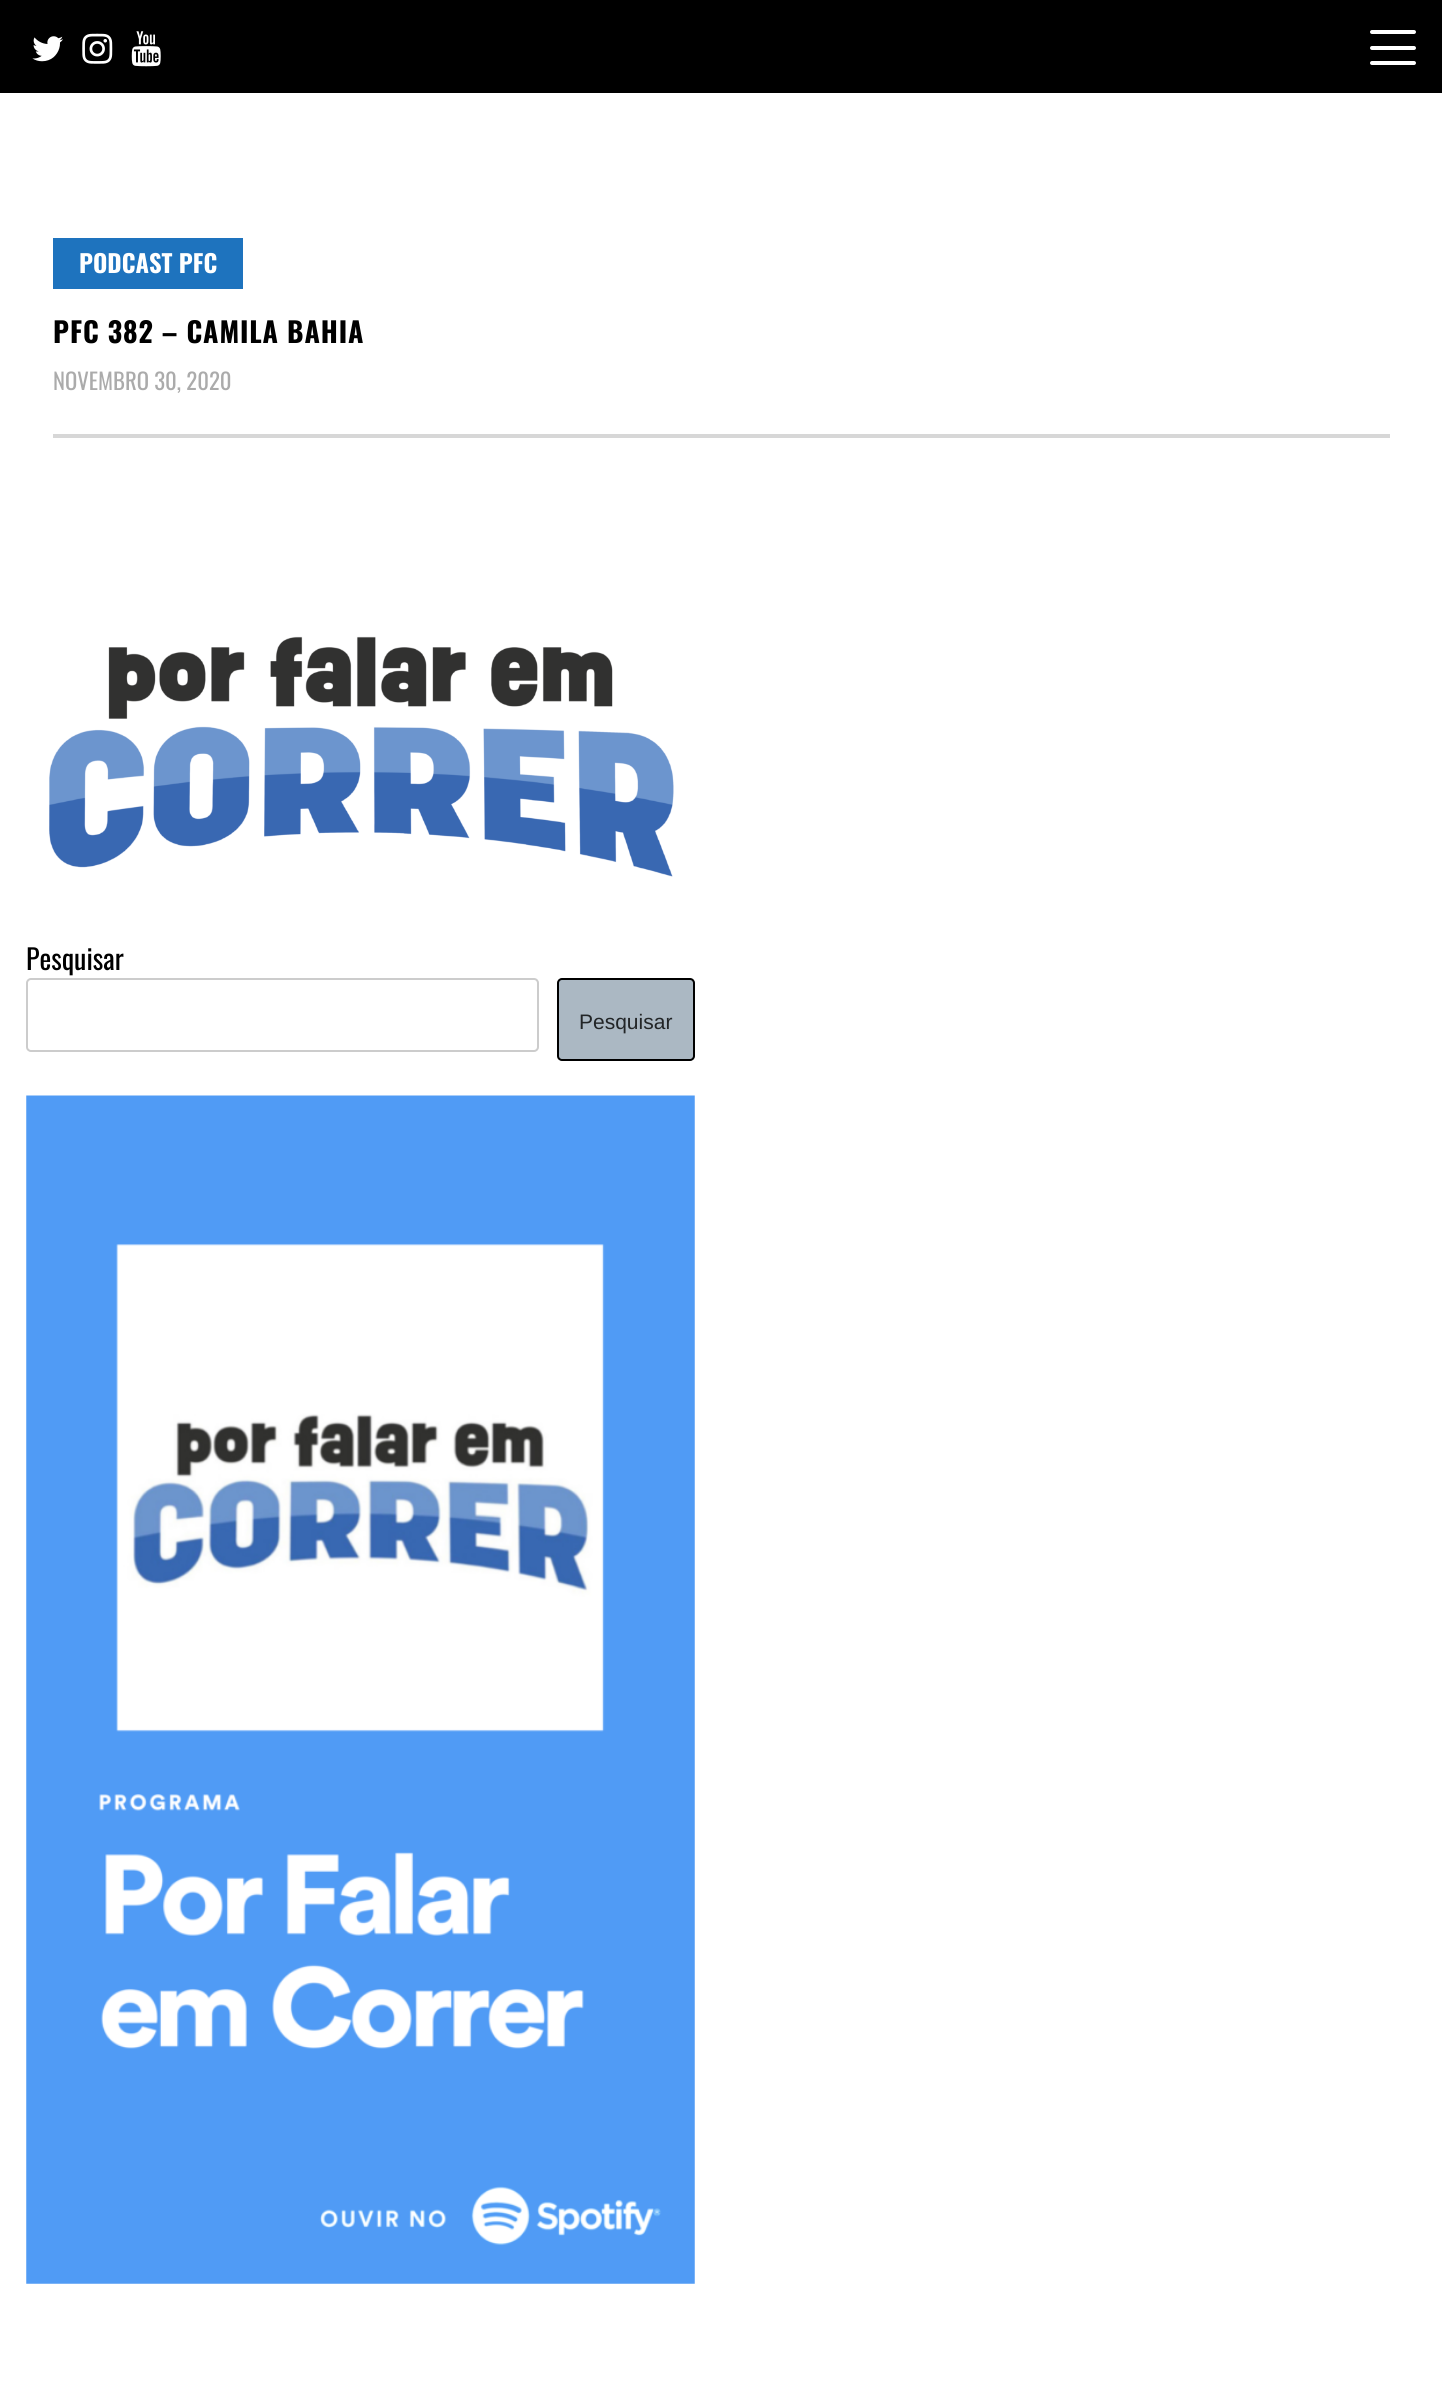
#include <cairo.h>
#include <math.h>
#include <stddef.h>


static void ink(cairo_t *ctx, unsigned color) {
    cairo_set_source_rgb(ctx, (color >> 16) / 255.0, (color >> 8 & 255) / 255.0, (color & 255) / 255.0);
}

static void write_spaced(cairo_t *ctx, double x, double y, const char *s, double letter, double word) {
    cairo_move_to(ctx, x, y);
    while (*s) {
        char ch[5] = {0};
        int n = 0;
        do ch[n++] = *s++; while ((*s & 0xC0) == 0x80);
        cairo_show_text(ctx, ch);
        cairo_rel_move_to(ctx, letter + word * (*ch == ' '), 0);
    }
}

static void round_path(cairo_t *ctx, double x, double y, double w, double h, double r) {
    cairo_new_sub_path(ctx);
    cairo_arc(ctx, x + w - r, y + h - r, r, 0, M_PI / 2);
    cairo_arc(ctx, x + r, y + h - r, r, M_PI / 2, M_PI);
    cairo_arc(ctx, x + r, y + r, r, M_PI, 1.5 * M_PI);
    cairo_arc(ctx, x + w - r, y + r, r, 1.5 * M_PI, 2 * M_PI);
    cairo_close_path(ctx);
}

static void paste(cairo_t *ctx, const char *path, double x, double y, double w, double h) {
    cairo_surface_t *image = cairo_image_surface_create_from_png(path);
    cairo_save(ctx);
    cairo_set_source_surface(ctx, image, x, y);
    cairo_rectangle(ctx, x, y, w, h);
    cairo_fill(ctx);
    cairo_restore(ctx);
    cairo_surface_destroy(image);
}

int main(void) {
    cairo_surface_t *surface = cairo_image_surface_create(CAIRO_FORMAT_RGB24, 1442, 2381);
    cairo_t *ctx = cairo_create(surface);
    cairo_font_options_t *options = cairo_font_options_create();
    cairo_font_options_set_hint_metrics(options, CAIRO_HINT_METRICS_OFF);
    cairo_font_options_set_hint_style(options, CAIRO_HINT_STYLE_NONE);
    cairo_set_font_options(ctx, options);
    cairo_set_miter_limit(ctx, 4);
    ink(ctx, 0xFFFFFF);
    cairo_paint(ctx);
    ink(ctx, 0x000000);
    cairo_rectangle(ctx, 0, 0, 1442, 93);
    cairo_fill(ctx);
    paste(ctx, "media/1.png", 32, 36, 31, 26);
    paste(ctx, "media/2.png", 82, 33, 31, 31);
    paste(ctx, "media/3.png", 131, 31, 30, 36);
    ink(ctx, 0xFFFFFF);
    round_path(ctx, 1370, 46, 46, 4, 2);
    cairo_fill(ctx);
    round_path(ctx, 1370, 30, 46, 4, 2);
    cairo_fill(ctx);
    round_path(ctx, 1370, 61, 46, 4, 2);
    cairo_fill(ctx);
    ink(ctx, 0xD7D7D7);
    cairo_rectangle(ctx, 53, 434, 1337, 4);
    cairo_fill(ctx);
    ink(ctx, 0x1E73BE);
    cairo_rectangle(ctx, 53, 238, 190, 51);
    cairo_fill(ctx);
    cairo_select_font_face(ctx, "Oswald", CAIRO_FONT_SLANT_NORMAL, CAIRO_FONT_WEIGHT_BOLD);
    cairo_set_font_size(ctx, 24.5);
    ink(ctx, 0xFFFFFF);
    cairo_move_to(ctx, 79, 273);
    cairo_show_text(ctx, "PODCAST PFC");
    cairo_set_font_size(ctx, 28);
    ink(ctx, 0x000000);
    write_spaced(ctx, 53, 343, "PFC 382 – CAMILA BAHIA", 0.9, 0);
    cairo_select_font_face(ctx, "Oswald", CAIRO_FONT_SLANT_NORMAL, CAIRO_FONT_WEIGHT_NORMAL);
    cairo_set_font_size(ctx, 22.75);
    ink(ctx, 0xABABAB);
    cairo_move_to(ctx, 53, 390);
    cairo_show_text(ctx, "NOVEMBRO 30, 2020");
    paste(ctx, "media/4.png", 49, 636, 625, 241);
    cairo_set_font_size(ctx, 28);
    ink(ctx, 0x000000);
    cairo_move_to(ctx, 26, 970);
    cairo_show_text(ctx, "Pesquisar");
    round_path(ctx, 27, 979, 511, 72, 4);
    ink(ctx, 0xCCCCCC);
    cairo_stroke(ctx);
    ink(ctx, 0xABB8C3);
    round_path(ctx, 558, 979, 136, 81, 4);
    cairo_fill_preserve(ctx);
    ink(ctx, 0x000000);
    cairo_stroke(ctx);
    cairo_select_font_face(ctx, "Liberation Sans", CAIRO_FONT_SLANT_NORMAL, CAIRO_FONT_WEIGHT_NORMAL);
    cairo_set_font_size(ctx, 21);
    ink(ctx, 0x222527);
    cairo_move_to(ctx, 579, 1029);
    cairo_show_text(ctx, "Pesquisar");
    paste(ctx, "media/5.png", 26, 1095, 669, 1189);
    cairo_surface_write_to_png(surface, "image.png");
    cairo_font_options_destroy(options);
    cairo_destroy(ctx);
    cairo_surface_destroy(surface);
    return 0;
}
